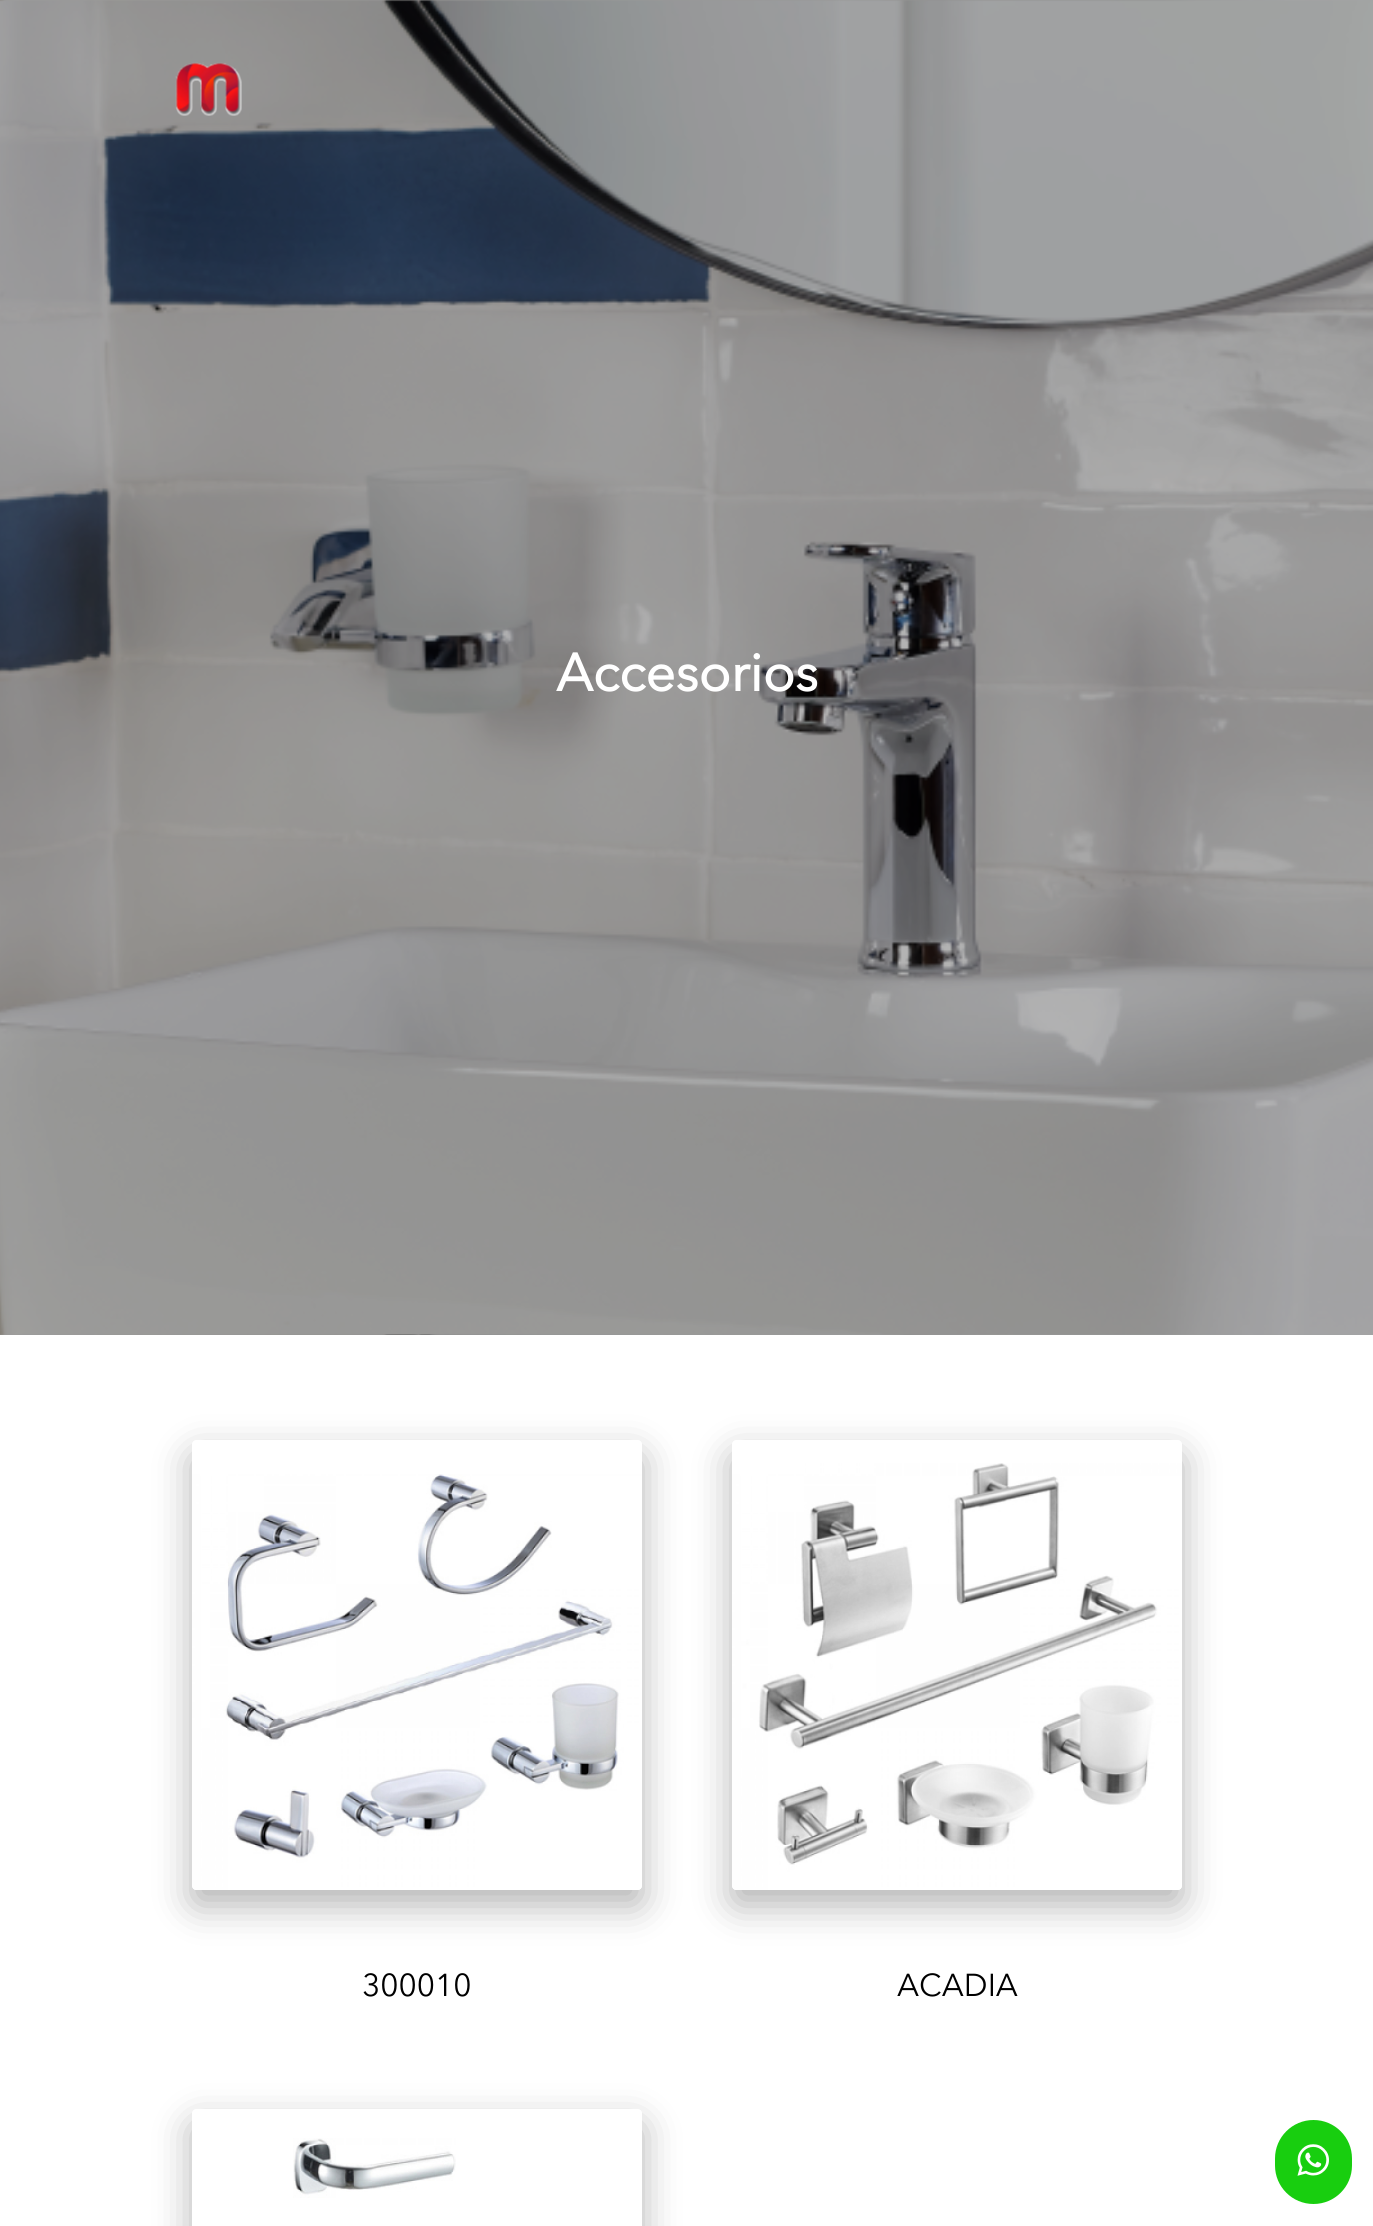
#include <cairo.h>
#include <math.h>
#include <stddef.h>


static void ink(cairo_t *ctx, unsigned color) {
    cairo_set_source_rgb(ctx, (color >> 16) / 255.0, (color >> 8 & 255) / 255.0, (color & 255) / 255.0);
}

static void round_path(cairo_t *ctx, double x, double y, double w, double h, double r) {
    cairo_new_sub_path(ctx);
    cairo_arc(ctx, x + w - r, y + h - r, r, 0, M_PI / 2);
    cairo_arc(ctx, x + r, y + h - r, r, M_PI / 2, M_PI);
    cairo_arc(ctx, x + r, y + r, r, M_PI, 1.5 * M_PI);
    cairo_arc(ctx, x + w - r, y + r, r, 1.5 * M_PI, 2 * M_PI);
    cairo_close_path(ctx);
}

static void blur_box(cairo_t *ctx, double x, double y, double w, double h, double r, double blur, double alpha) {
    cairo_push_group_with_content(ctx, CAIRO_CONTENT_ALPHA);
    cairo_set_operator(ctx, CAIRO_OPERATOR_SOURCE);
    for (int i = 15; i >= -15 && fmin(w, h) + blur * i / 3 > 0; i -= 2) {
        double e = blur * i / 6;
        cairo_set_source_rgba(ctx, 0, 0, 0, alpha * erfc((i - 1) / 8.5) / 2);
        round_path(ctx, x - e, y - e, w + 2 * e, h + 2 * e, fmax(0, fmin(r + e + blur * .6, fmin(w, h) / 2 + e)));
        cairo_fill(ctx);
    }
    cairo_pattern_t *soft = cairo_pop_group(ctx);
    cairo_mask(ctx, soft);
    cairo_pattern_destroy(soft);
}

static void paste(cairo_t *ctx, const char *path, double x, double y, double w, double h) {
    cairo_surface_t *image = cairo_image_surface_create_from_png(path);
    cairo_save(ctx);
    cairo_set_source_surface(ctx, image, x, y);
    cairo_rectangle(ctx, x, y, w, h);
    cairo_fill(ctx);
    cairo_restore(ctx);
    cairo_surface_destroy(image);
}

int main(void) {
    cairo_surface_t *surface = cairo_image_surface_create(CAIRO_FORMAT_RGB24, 1373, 2226);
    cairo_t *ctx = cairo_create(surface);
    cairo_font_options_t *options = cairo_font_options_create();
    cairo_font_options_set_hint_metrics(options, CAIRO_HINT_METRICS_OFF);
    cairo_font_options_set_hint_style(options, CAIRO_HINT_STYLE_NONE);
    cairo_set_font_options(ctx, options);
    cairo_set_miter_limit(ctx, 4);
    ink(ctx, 0xFFFFFF);
    cairo_paint(ctx);
    paste(ctx, "media/2.png", 0, 0, 1373, 1335);
    paste(ctx, "media/1.png", 175, 62, 67, 54);
    cairo_select_font_face(ctx, "Avenir Next", CAIRO_FONT_SLANT_NORMAL, CAIRO_FONT_WEIGHT_BOLD);
    cairo_set_font_size(ctx, 52.5);
    ink(ctx, 0xFFFFFF);
    cairo_move_to(ctx, 556, 691);
    cairo_show_text(ctx, "Accesorios");
    cairo_save(ctx);
    cairo_set_fill_rule(ctx, CAIRO_FILL_RULE_EVEN_ODD);
    cairo_new_path(ctx);
    cairo_move_to(ctx, 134, 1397);
    cairo_line_to(ctx, 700, 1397);
    cairo_line_to(ctx, 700, 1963);
    cairo_line_to(ctx, 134, 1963);
    cairo_close_path(ctx);
    cairo_move_to(ctx, 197, 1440);
    cairo_line_to(ctx, 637, 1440);
    cairo_curve_to(ctx, 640, 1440, 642, 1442, 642, 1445);
    cairo_line_to(ctx, 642, 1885);
    cairo_curve_to(ctx, 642, 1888, 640, 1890, 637, 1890);
    cairo_line_to(ctx, 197, 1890);
    cairo_curve_to(ctx, 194, 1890, 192, 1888, 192, 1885);
    cairo_line_to(ctx, 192, 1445);
    cairo_curve_to(ctx, 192, 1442, 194, 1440, 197, 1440);
    cairo_close_path(ctx);
    cairo_clip(ctx);
    ink(ctx, 0x000000);
    blur_box(ctx, 192, 1455, 450, 450, 5, 19, 0.3);
    cairo_restore(ctx);
    paste(ctx, "media/3.png", 192, 1474, 450, 416);
    cairo_select_font_face(ctx, "Avenir Next", CAIRO_FONT_SLANT_NORMAL, CAIRO_FONT_WEIGHT_NORMAL);
    cairo_set_font_size(ctx, 31.5);
    ink(ctx, 0x000000);
    cairo_move_to(ctx, 362, 1996);
    cairo_show_text(ctx, "300010");
    cairo_save(ctx);
    cairo_set_fill_rule(ctx, CAIRO_FILL_RULE_EVEN_ODD);
    cairo_new_path(ctx);
    cairo_move_to(ctx, 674, 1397);
    cairo_line_to(ctx, 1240, 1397);
    cairo_line_to(ctx, 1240, 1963);
    cairo_line_to(ctx, 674, 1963);
    cairo_close_path(ctx);
    cairo_move_to(ctx, 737, 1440);
    cairo_line_to(ctx, 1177, 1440);
    cairo_curve_to(ctx, 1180, 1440, 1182, 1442, 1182, 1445);
    cairo_line_to(ctx, 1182, 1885);
    cairo_curve_to(ctx, 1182, 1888, 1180, 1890, 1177, 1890);
    cairo_line_to(ctx, 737, 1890);
    cairo_curve_to(ctx, 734, 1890, 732, 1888, 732, 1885);
    cairo_line_to(ctx, 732, 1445);
    cairo_curve_to(ctx, 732, 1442, 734, 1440, 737, 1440);
    cairo_close_path(ctx);
    cairo_clip(ctx);
    ink(ctx, 0x000000);
    blur_box(ctx, 732, 1455, 450, 450, 5, 19, 0.3);
    cairo_restore(ctx);
    paste(ctx, "media/4.png", 732, 1463, 450, 427);
    cairo_move_to(ctx, 897, 1996);
    cairo_show_text(ctx, "ACADIA");
    cairo_save(ctx);
    cairo_set_fill_rule(ctx, CAIRO_FILL_RULE_EVEN_ODD);
    cairo_new_path(ctx);
    cairo_move_to(ctx, 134, 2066);
    cairo_line_to(ctx, 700, 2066);
    cairo_line_to(ctx, 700, 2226);
    cairo_line_to(ctx, 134, 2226);
    cairo_close_path(ctx);
    cairo_move_to(ctx, 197, 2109);
    cairo_line_to(ctx, 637, 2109);
    cairo_curve_to(ctx, 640, 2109, 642, 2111, 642, 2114);
    cairo_line_to(ctx, 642, 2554);
    cairo_curve_to(ctx, 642, 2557, 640, 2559, 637, 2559);
    cairo_line_to(ctx, 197, 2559);
    cairo_curve_to(ctx, 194, 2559, 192, 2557, 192, 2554);
    cairo_line_to(ctx, 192, 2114);
    cairo_curve_to(ctx, 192, 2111, 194, 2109, 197, 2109);
    cairo_close_path(ctx);
    cairo_clip(ctx);
    ink(ctx, 0x000000);
    blur_box(ctx, 192, 2124, 450, 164, 5, 19, 0.3);
    cairo_restore(ctx);
    paste(ctx, "media/5.png", 293, 2138, 163, 60);
    ink(ctx, 0x18CE0F);
    round_path(ctx, 1275, 2120, 77, 84, 38.5);
    cairo_fill(ctx);
    paste(ctx, "media/6.png", 1297, 2144, 32, 32);
    cairo_surface_write_to_png(surface, "image.png");
    cairo_font_options_destroy(options);
    cairo_destroy(ctx);
    cairo_surface_destroy(surface);
    return 0;
}
